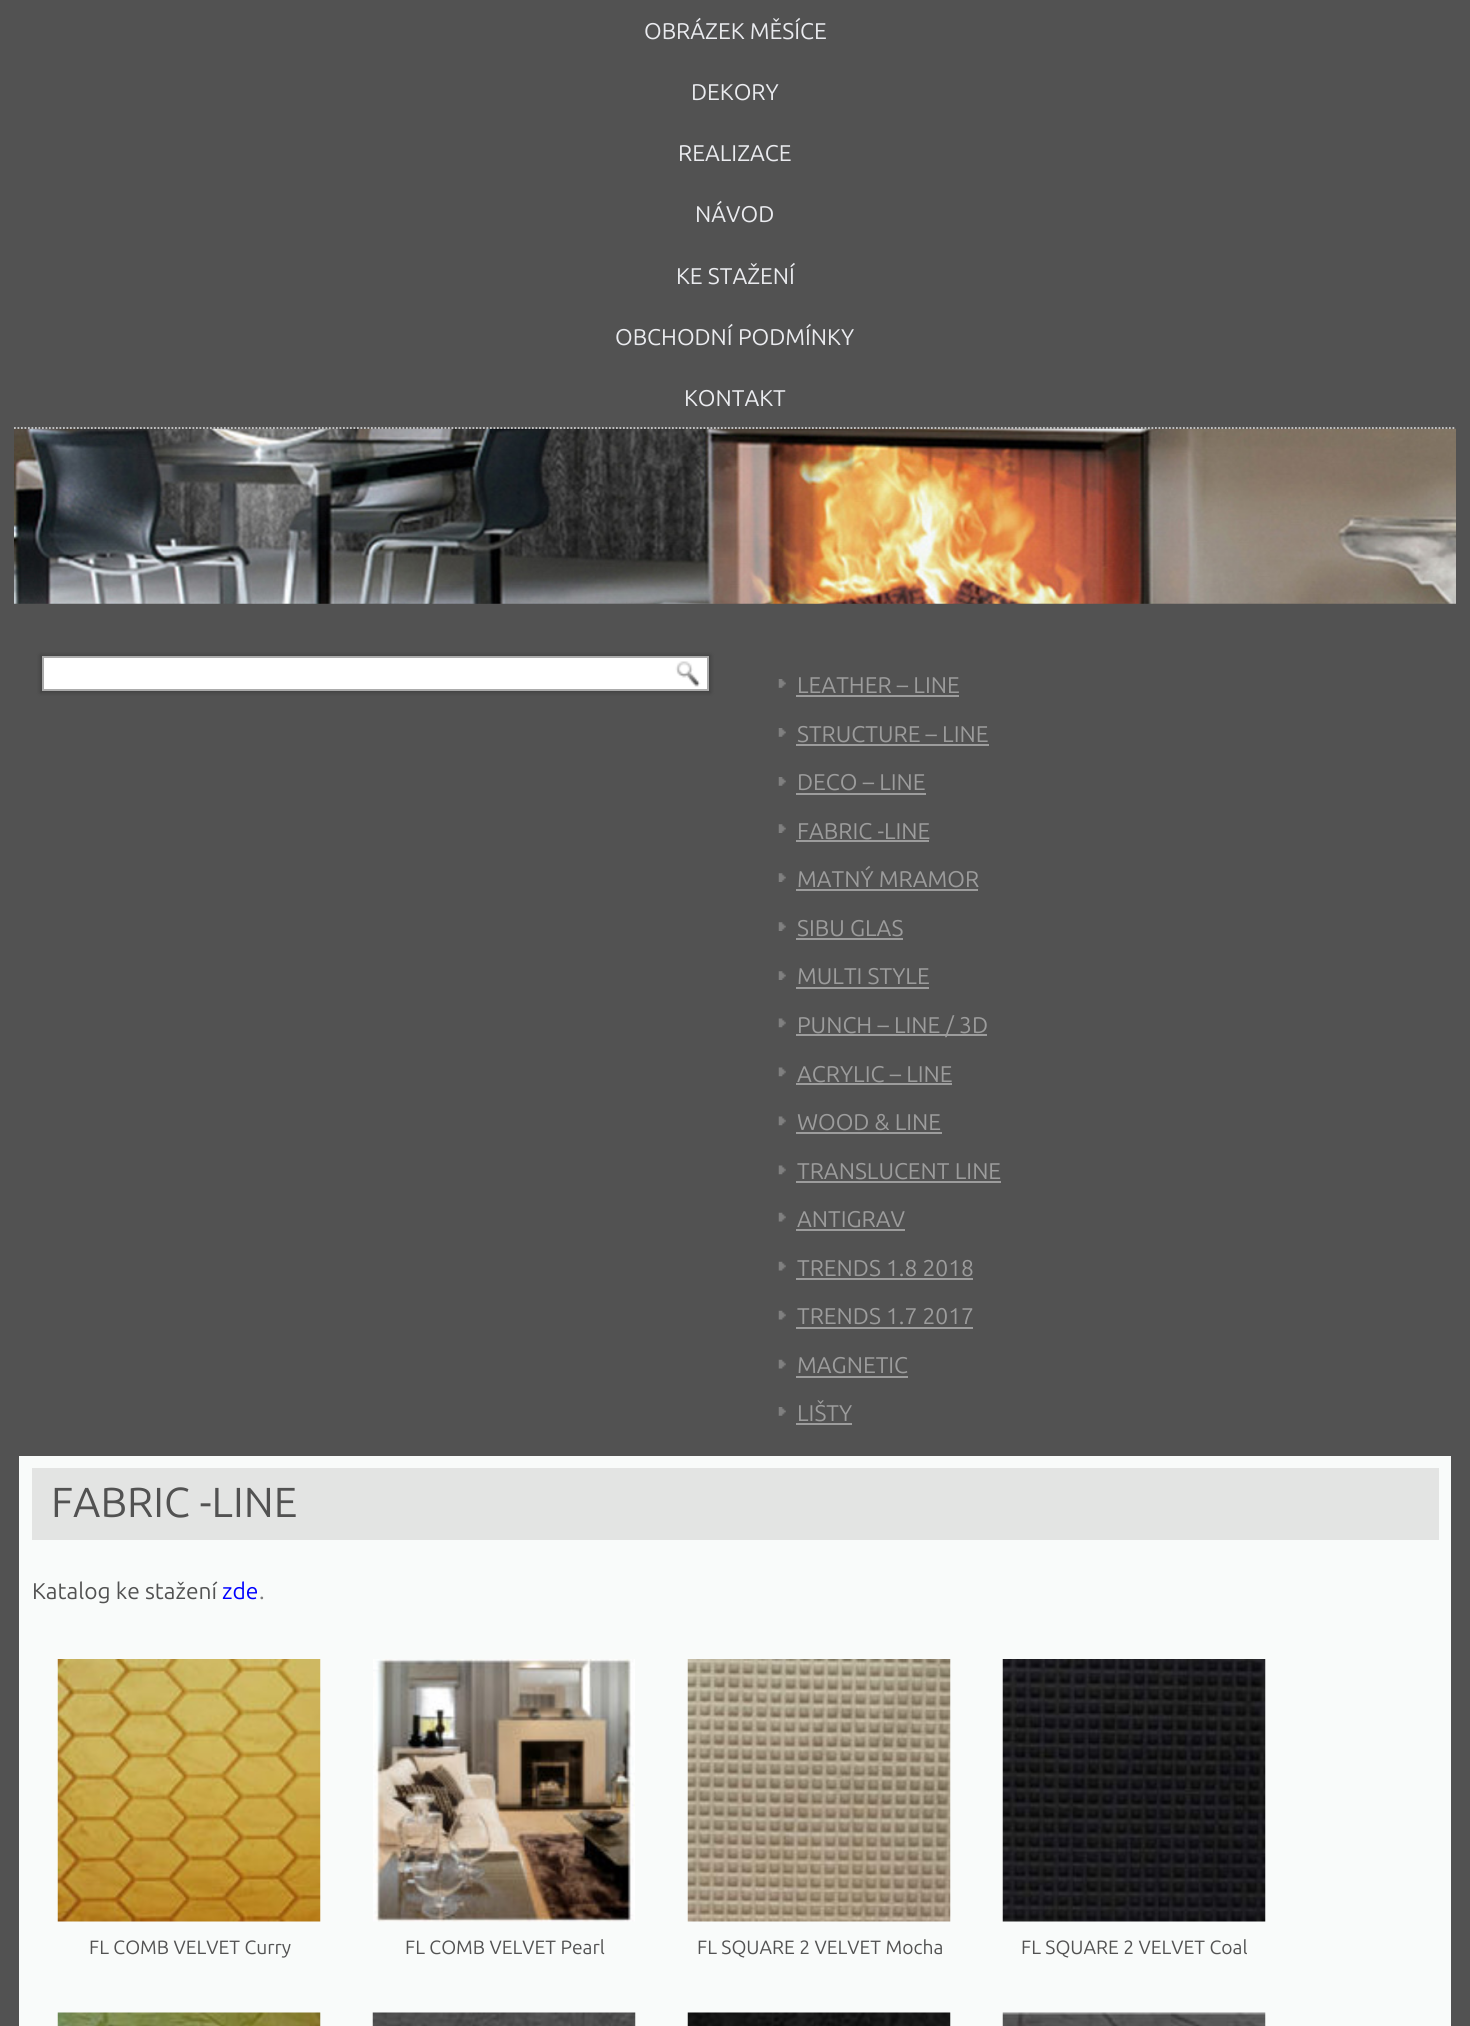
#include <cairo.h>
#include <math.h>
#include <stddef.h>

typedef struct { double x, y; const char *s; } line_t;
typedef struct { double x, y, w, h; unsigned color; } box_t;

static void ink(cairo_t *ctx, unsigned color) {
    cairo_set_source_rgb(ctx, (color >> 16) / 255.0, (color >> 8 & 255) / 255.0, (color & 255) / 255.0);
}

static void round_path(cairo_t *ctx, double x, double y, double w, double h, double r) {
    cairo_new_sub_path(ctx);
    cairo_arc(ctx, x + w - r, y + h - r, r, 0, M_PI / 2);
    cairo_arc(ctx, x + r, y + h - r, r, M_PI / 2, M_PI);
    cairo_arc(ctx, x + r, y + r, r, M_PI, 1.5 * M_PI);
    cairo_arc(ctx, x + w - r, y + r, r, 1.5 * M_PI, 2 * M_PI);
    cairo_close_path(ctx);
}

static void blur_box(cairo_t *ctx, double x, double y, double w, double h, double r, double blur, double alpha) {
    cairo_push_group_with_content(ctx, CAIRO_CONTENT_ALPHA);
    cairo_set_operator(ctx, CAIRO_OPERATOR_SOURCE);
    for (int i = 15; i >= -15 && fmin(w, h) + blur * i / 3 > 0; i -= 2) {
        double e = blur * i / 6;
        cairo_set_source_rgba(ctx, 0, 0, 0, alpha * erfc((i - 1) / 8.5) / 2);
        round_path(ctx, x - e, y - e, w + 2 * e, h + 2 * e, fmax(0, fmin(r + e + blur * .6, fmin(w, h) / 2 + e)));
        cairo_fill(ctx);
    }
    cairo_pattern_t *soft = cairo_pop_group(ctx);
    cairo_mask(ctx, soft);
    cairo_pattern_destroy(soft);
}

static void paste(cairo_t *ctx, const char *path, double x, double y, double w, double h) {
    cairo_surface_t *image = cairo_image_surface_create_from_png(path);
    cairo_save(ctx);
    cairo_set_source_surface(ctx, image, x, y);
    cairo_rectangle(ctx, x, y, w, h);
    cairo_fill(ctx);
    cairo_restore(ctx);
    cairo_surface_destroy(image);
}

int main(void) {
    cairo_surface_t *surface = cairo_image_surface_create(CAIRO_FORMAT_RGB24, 1470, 2026);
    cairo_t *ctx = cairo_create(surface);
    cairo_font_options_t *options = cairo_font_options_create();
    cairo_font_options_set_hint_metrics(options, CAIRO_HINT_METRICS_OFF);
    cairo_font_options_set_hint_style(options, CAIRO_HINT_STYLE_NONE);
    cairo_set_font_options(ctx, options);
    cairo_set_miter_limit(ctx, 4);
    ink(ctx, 0x525252);
    cairo_paint(ctx);
    paste(ctx, "media/1.png", 14, 428, 1442, 176);
    cairo_new_path(ctx);
    cairo_move_to(ctx, 14, 428);
    cairo_line_to(ctx, 1456, 428);
    ink(ctx, 0xCCCCCC);
    cairo_set_line_width(ctx, 1.8);
    cairo_set_dash(ctx, (double[]){1.75, 1.75}, 2, 0);
    cairo_stroke(ctx);
    cairo_select_font_face(ctx, "Ubuntu", CAIRO_FONT_SLANT_NORMAL, CAIRO_FONT_WEIGHT_NORMAL);
    cairo_set_font_size(ctx, 22.75);
    ink(ctx, 0xEAEBEF);
    {
        static const line_t items[] = {
            {644, 39, "OBRÁZEK MĚSÍCE"},
            {691, 100, "DEKORY"},
            {678, 161, "REALIZACE"},
            {695, 222, "NÁVOD"},
            {676, 284, "KE STAŽENÍ"},
            {615, 345, "OBCHODNÍ PODMÍNKY"},
            {684, 406, "KONTAKT"},
        };
        for (size_t i = 0; i < sizeof items / sizeof *items; i++) {
            cairo_move_to(ctx, items[i].x, items[i].y);
            cairo_show_text(ctx, items[i].s);
        }
    }
    ink(ctx, 0x000000);
    blur_box(ctx, 40, 655, 671, 38, 0, 2, 0.2);
    ink(ctx, 0xFFFFFF);
    cairo_rectangle(ctx, 43, 657, 665, 33);
    cairo_fill_preserve(ctx);
    ink(ctx, 0xABABAB);
    cairo_set_line_width(ctx, 2);
    cairo_set_dash(ctx, NULL, 0, 0);
    cairo_stroke(ctx);
    paste(ctx, "media/2.png", 675, 661, 26, 26);
    paste(ctx, "media/3.png", 778, 679, 8, 9);
    ink(ctx, 0x9C9C9C);
    cairo_move_to(ctx, 797, 693);
    cairo_show_text(ctx, "LEATHER – LINE");
    cairo_rectangle(ctx, 796, 695, 163, 2);
    cairo_fill(ctx);
    paste(ctx, "media/3.png", 778, 728, 8, 9);
    cairo_move_to(ctx, 797, 742);
    cairo_show_text(ctx, "STRUCTURE – LINE");
    cairo_rectangle(ctx, 796, 744, 193, 2);
    cairo_fill(ctx);
    paste(ctx, "media/3.png", 778, 777, 8, 9);
    cairo_move_to(ctx, 797, 790);
    cairo_show_text(ctx, "DECO – LINE");
    cairo_rectangle(ctx, 796, 793, 130, 2);
    cairo_fill(ctx);
    paste(ctx, "media/4.png", 778, 824, 8, 9);
    cairo_move_to(ctx, 797, 839);
    cairo_show_text(ctx, "FABRIC -LINE");
    cairo_rectangle(ctx, 796, 840, 133, 2);
    cairo_fill(ctx);
    paste(ctx, "media/4.png", 778, 873, 8, 9);
    cairo_move_to(ctx, 797, 887);
    cairo_show_text(ctx, "MATNÝ MRAMOR");
    cairo_rectangle(ctx, 796, 889, 182, 2);
    cairo_fill(ctx);
    paste(ctx, "media/4.png", 778, 922, 8, 9);
    cairo_move_to(ctx, 797, 936);
    cairo_show_text(ctx, "SIBU GLAS");
    cairo_rectangle(ctx, 796, 938, 107, 2);
    cairo_fill(ctx);
    paste(ctx, "media/4.png", 778, 971, 8, 9);
    cairo_move_to(ctx, 797, 984);
    cairo_show_text(ctx, "MULTI STYLE");
    cairo_rectangle(ctx, 796, 987, 133, 2);
    cairo_fill(ctx);
    paste(ctx, "media/5.png", 778, 1018, 8, 10);
    cairo_rectangle(ctx, 796, 1034, 191, 2);
    cairo_fill(ctx);
    cairo_move_to(ctx, 797, 1033);
    cairo_show_text(ctx, "PUNCH – LINE / 3D");
    paste(ctx, "media/5.png", 778, 1067, 8, 10);
    cairo_move_to(ctx, 797, 1082);
    cairo_show_text(ctx, "ACRYLIC – LINE");
    cairo_rectangle(ctx, 796, 1083, 156, 2);
    cairo_fill(ctx);
    paste(ctx, "media/5.png", 778, 1116, 8, 10);
    cairo_move_to(ctx, 797, 1130);
    cairo_show_text(ctx, "WOOD & LINE");
    cairo_rectangle(ctx, 796, 1132, 146, 2);
    cairo_fill(ctx);
    paste(ctx, "media/5.png", 778, 1165, 8, 10);
    cairo_move_to(ctx, 797, 1179);
    cairo_show_text(ctx, "TRANSLUCENT LINE");
    cairo_rectangle(ctx, 796, 1181, 205, 2);
    cairo_fill(ctx);
    paste(ctx, "media/6.png", 778, 1212, 8, 10);
    cairo_move_to(ctx, 797, 1227);
    cairo_show_text(ctx, "ANTIGRAV");
    cairo_rectangle(ctx, 796, 1229, 109, 2);
    cairo_fill(ctx);
    paste(ctx, "media/6.png", 778, 1261, 8, 10);
    cairo_move_to(ctx, 797, 1276);
    cairo_show_text(ctx, "TRENDS 1.8 2018");
    cairo_rectangle(ctx, 796, 1278, 177, 2);
    cairo_fill(ctx);
    paste(ctx, "media/6.png", 778, 1310, 8, 10);
    cairo_move_to(ctx, 797, 1324);
    cairo_show_text(ctx, "TRENDS 1.7 2017");
    cairo_rectangle(ctx, 796, 1327, 177, 2);
    cairo_fill(ctx);
    paste(ctx, "media/6.png", 778, 1359, 8, 10);
    cairo_move_to(ctx, 797, 1373);
    cairo_show_text(ctx, "MAGNETIC");
    cairo_rectangle(ctx, 796, 1376, 112, 2);
    cairo_fill(ctx);
    paste(ctx, "media/3.png", 778, 1407, 8, 9);
    cairo_move_to(ctx, 797, 1421);
    cairo_show_text(ctx, "LIŠTY");
    {
        static const box_t items[] = {
            {796, 1423, 56, 2, 0x9C9C9C},
            {19, 1456, 1432, 570, 0xF9FBFA},
            {32, 1468, 1407, 72, 0xE3E4E3},
        };
        for (size_t i = 0; i < sizeof items / sizeof *items; i++) {
            ink(ctx, items[i].color);
            cairo_rectangle(ctx, items[i].x, items[i].y, items[i].w, items[i].h);
            cairo_fill(ctx);
        }
    }
    cairo_set_font_size(ctx, 42);
    ink(ctx, 0x525252);
    cairo_move_to(ctx, 51, 1517);
    cairo_show_text(ctx, "FABRIC -LINE");
    cairo_set_font_size(ctx, 22.75);
    cairo_move_to(ctx, 32, 1599);
    cairo_show_text(ctx, "Katalog ke stažení");
    ink(ctx, 0x0000FF);
    cairo_move_to(ctx, 222, 1599);
    cairo_show_text(ctx, "zde");
    ink(ctx, 0x7D7D7D);
    cairo_move_to(ctx, 259, 1599);
    cairo_show_text(ctx, ".");
    paste(ctx, "media/7.png", 57, 1659, 264, 263);
    cairo_set_font_size(ctx, 19.25);
    ink(ctx, 0x525252);
    cairo_move_to(ctx, 89, 1954);
    cairo_show_text(ctx, "FL COMB VELVET Curry");
    paste(ctx, "media/8.png", 373, 1659, 262, 263);
    cairo_move_to(ctx, 405, 1954);
    cairo_show_text(ctx, "FL COMB VELVET Pearl");
    paste(ctx, "media/9.png", 687, 1659, 264, 263);
    cairo_move_to(ctx, 697, 1954);
    cairo_show_text(ctx, "FL SQUARE 2 VELVET Mocha");
    paste(ctx, "media/10.png", 1002, 1659, 264, 263);
    cairo_move_to(ctx, 1021, 1954);
    cairo_show_text(ctx, "FL SQUARE 2 VELVET Coal");
    paste(ctx, "media/11.png", 57, 2012, 264, 14);
    paste(ctx, "media/12.png", 372, 2012, 264, 14);
    paste(ctx, "media/13.png", 687, 2012, 264, 14);
    paste(ctx, "media/14.png", 1002, 2012, 264, 14);
    cairo_surface_write_to_png(surface, "image.png");
    cairo_font_options_destroy(options);
    cairo_destroy(ctx);
    cairo_surface_destroy(surface);
    return 0;
}
